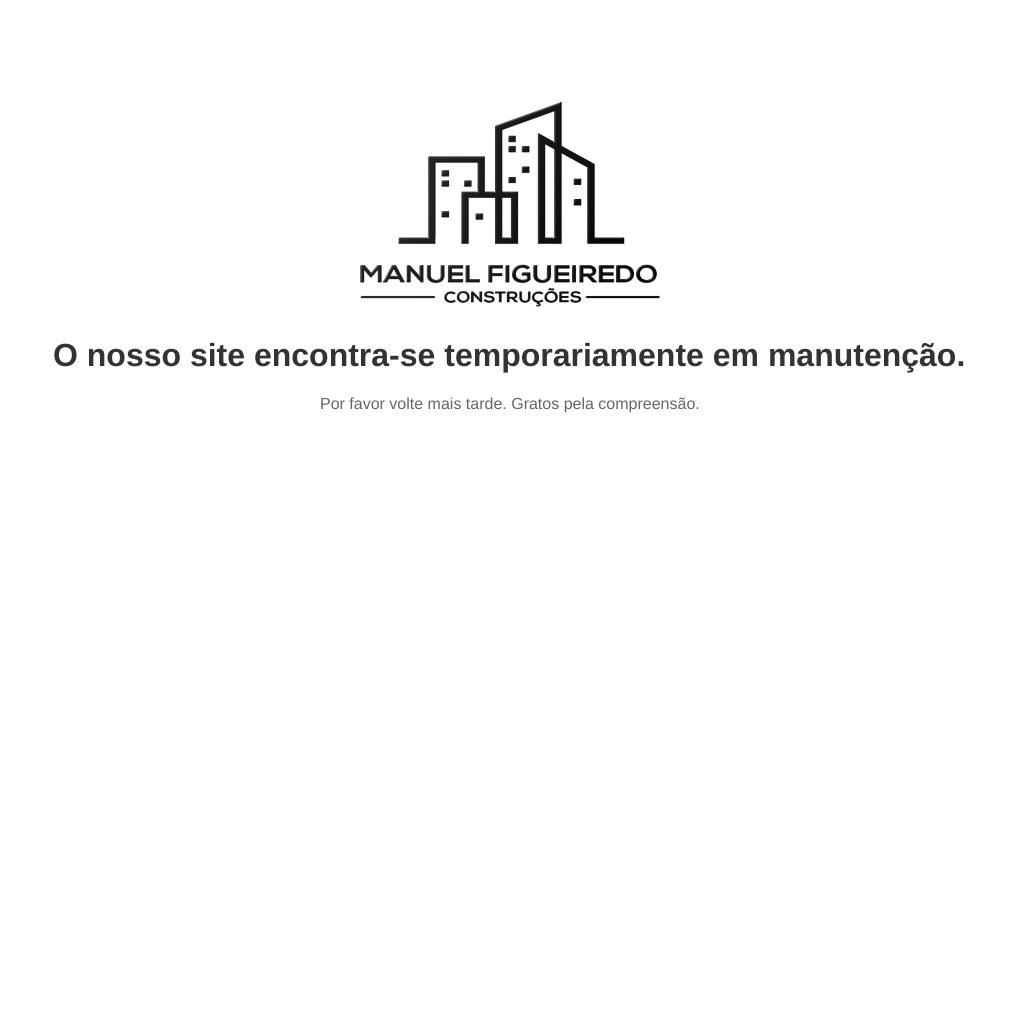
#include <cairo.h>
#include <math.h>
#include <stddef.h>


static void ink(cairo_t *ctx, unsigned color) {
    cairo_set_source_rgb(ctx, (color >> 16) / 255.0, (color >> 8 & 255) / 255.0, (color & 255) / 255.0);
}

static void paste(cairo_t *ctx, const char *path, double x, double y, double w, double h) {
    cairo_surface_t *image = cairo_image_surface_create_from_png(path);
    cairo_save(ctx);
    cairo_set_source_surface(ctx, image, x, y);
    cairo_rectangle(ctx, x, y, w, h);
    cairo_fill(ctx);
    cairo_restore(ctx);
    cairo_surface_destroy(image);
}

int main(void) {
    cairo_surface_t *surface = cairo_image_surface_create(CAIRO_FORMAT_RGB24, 1019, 1010);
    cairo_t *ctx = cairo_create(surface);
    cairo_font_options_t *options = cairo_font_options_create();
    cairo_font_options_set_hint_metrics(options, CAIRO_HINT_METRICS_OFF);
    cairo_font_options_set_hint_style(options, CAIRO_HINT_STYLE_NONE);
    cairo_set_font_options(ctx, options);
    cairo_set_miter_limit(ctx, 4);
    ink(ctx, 0xFFFFFF);
    cairo_paint(ctx);
    paste(ctx, "media/1.png", 360, 102, 300, 205);
    cairo_select_font_face(ctx, "Liberation Sans", CAIRO_FONT_SLANT_NORMAL, CAIRO_FONT_WEIGHT_BOLD);
    cairo_set_font_size(ctx, 32);
    ink(ctx, 0x333333);
    cairo_move_to(ctx, 53, 366);
    cairo_show_text(ctx, "O nosso site encontra-se temporariamente em manutenção.");
    cairo_select_font_face(ctx, "Liberation Sans", CAIRO_FONT_SLANT_NORMAL, CAIRO_FONT_WEIGHT_NORMAL);
    cairo_set_font_size(ctx, 16);
    ink(ctx, 0x666666);
    cairo_move_to(ctx, 320, 409);
    cairo_show_text(ctx, "Por favor volte mais tarde. Gratos pela compreensão.");
    cairo_surface_write_to_png(surface, "image.png");
    cairo_font_options_destroy(options);
    cairo_destroy(ctx);
    cairo_surface_destroy(surface);
    return 0;
}
